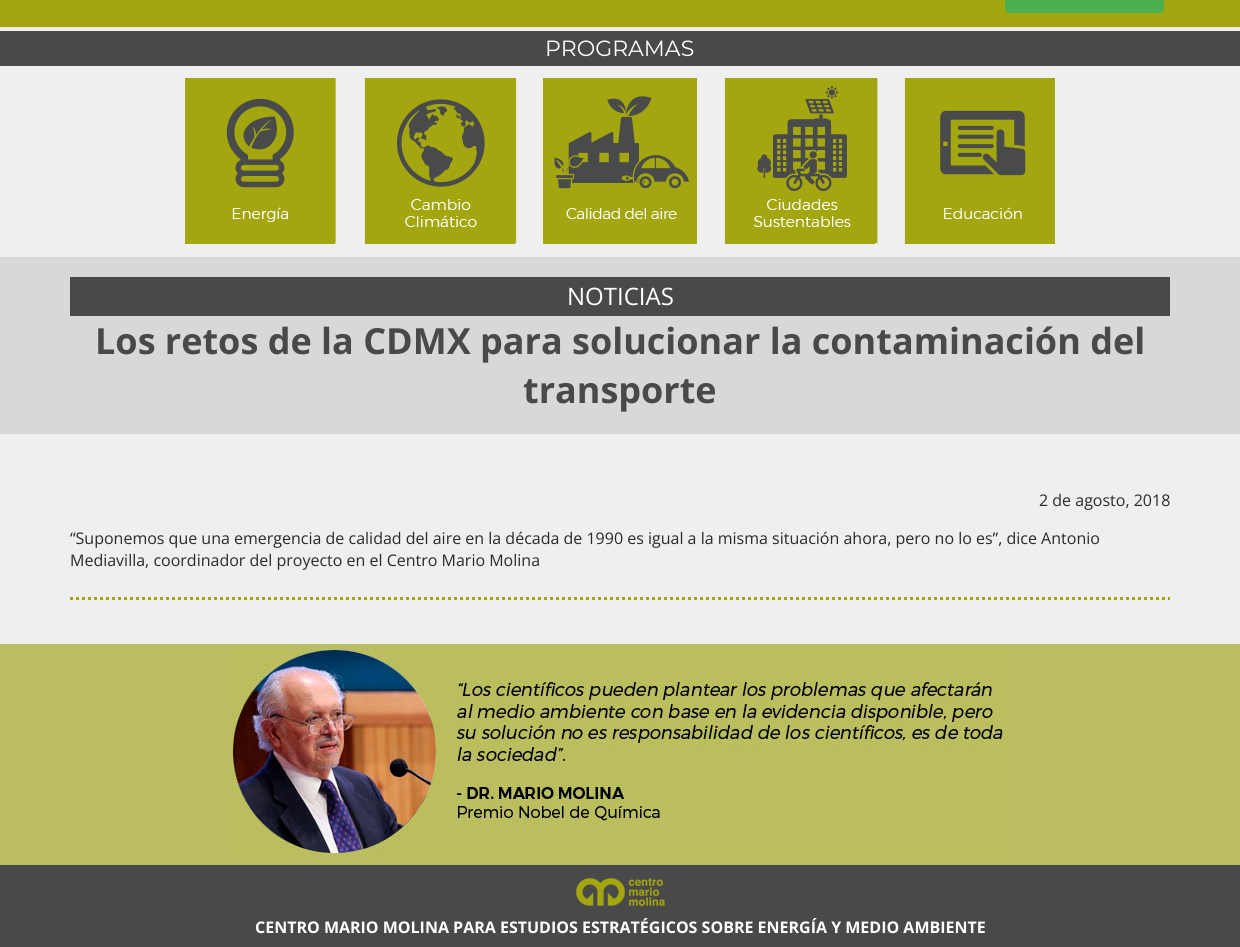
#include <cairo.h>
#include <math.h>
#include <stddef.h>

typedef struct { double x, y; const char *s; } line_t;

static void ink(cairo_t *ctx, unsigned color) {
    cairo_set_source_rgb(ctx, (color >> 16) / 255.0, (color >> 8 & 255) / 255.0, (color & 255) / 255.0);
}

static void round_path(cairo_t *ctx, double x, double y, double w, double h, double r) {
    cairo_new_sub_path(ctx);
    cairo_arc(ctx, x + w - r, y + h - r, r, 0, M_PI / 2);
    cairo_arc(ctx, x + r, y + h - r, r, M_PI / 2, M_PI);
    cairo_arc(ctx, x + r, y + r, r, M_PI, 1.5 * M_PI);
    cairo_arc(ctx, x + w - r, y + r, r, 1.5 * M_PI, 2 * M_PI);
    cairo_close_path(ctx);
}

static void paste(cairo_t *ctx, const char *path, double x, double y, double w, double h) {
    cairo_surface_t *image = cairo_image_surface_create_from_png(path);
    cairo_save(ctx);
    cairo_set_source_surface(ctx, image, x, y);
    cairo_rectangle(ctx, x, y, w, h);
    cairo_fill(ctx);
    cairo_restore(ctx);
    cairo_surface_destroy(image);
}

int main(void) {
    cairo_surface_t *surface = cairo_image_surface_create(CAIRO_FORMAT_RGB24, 1240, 947);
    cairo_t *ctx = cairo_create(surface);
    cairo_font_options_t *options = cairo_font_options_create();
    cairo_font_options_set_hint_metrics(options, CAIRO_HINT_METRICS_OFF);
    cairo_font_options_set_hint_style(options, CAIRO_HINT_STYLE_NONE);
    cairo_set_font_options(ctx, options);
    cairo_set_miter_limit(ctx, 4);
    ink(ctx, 0xA3A60F);
    cairo_paint(ctx);
    ink(ctx, 0x4CAF50);
    round_path(ctx, 1005, -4, 159, 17, 4);
    cairo_fill(ctx);
    ink(ctx, 0xEFEFEF);
    cairo_rectangle(ctx, 0, 27, 1240, 230);
    cairo_fill(ctx);
    ink(ctx, 0x494949);
    cairo_rectangle(ctx, 0, 31, 1240, 35);
    cairo_fill(ctx);
    cairo_select_font_face(ctx, "Montserrat Thin", CAIRO_FONT_SLANT_NORMAL, CAIRO_FONT_WEIGHT_NORMAL);
    cairo_set_font_size(ctx, 22);
    ink(ctx, 0xFFFFFF);
    cairo_move_to(ctx, 545, 56);
    cairo_show_text(ctx, "PROGRAMAS");
    paste(ctx, "media/1.png", 185, 78, 870, 166);
    ink(ctx, 0xD8D8D8);
    cairo_rectangle(ctx, 0, 257, 1240, 177);
    cairo_fill(ctx);
    ink(ctx, 0x494949);
    cairo_rectangle(ctx, 70, 277, 1100, 39);
    cairo_fill(ctx);
    cairo_select_font_face(ctx, "Open Sans", CAIRO_FONT_SLANT_NORMAL, CAIRO_FONT_WEIGHT_NORMAL);
    cairo_set_font_size(ctx, 24);
    ink(ctx, 0xFFFFFF);
    cairo_move_to(ctx, 567, 305);
    cairo_show_text(ctx, "NOTICIAS");
    cairo_select_font_face(ctx, "Open Sans", CAIRO_FONT_SLANT_NORMAL, CAIRO_FONT_WEIGHT_BOLD);
    cairo_set_font_size(ctx, 36);
    ink(ctx, 0x494949);
    cairo_move_to(ctx, 95, 354);
    cairo_show_text(ctx, "Los retos de la CDMX para solucionar la contaminación del");
    cairo_move_to(ctx, 523, 403);
    cairo_show_text(ctx, "transporte");
    ink(ctx, 0xEFEFEF);
    cairo_rectangle(ctx, 0, 434, 1240, 210);
    cairo_fill(ctx);
    cairo_new_path(ctx);
    cairo_move_to(ctx, 70, 598.5);
    cairo_line_to(ctx, 1170, 598.5);
    ink(ctx, 0xA1A60E);
    cairo_set_line_width(ctx, 3);
    cairo_set_dash(ctx, (double[]){3, 3}, 2, 0);
    cairo_stroke(ctx);
    cairo_select_font_face(ctx, "Open Sans", CAIRO_FONT_SLANT_NORMAL, CAIRO_FONT_WEIGHT_NORMAL);
    cairo_set_font_size(ctx, 16);
    ink(ctx, 0x2A2A2A);
    {
        static const line_t items[] = {
            {1039, 506, "2 de agosto, 2018"},
            {70, 544, "“Suponemos que una emergencia de calidad del aire en la década de 1990 es igual a la misma situación ahora, pero no lo es”, dice Antonio"},
            {70, 566, "Mediavilla, coordinador del proyecto en el Centro Mario Molina"},
        };
        for (size_t i = 0; i < sizeof items / sizeof *items; i++) {
            cairo_move_to(ctx, items[i].x, items[i].y);
            cairo_show_text(ctx, items[i].s);
        }
    }
    ink(ctx, 0xBABD64);
    cairo_rectangle(ctx, 0, 644, 1240, 221);
    cairo_fill(ctx);
    paste(ctx, "media/2.png", 232, 649, 777, 206);
    ink(ctx, 0x494949);
    cairo_rectangle(ctx, 0, 865, 1240, 82);
    cairo_fill(ctx);
    paste(ctx, "media/3.png", 576, 878, 89, 28);
    cairo_select_font_face(ctx, "Open Sans", CAIRO_FONT_SLANT_NORMAL, CAIRO_FONT_WEIGHT_BOLD);
    ink(ctx, 0xFFFFFF);
    cairo_move_to(ctx, 255, 933);
    cairo_show_text(ctx, "CENTRO MARIO MOLINA PARA ESTUDIOS ESTRATÉGICOS SOBRE ENERGÍA Y MEDIO AMBIENTE");
    cairo_surface_write_to_png(surface, "image.png");
    cairo_font_options_destroy(options);
    cairo_destroy(ctx);
    cairo_surface_destroy(surface);
    return 0;
}
